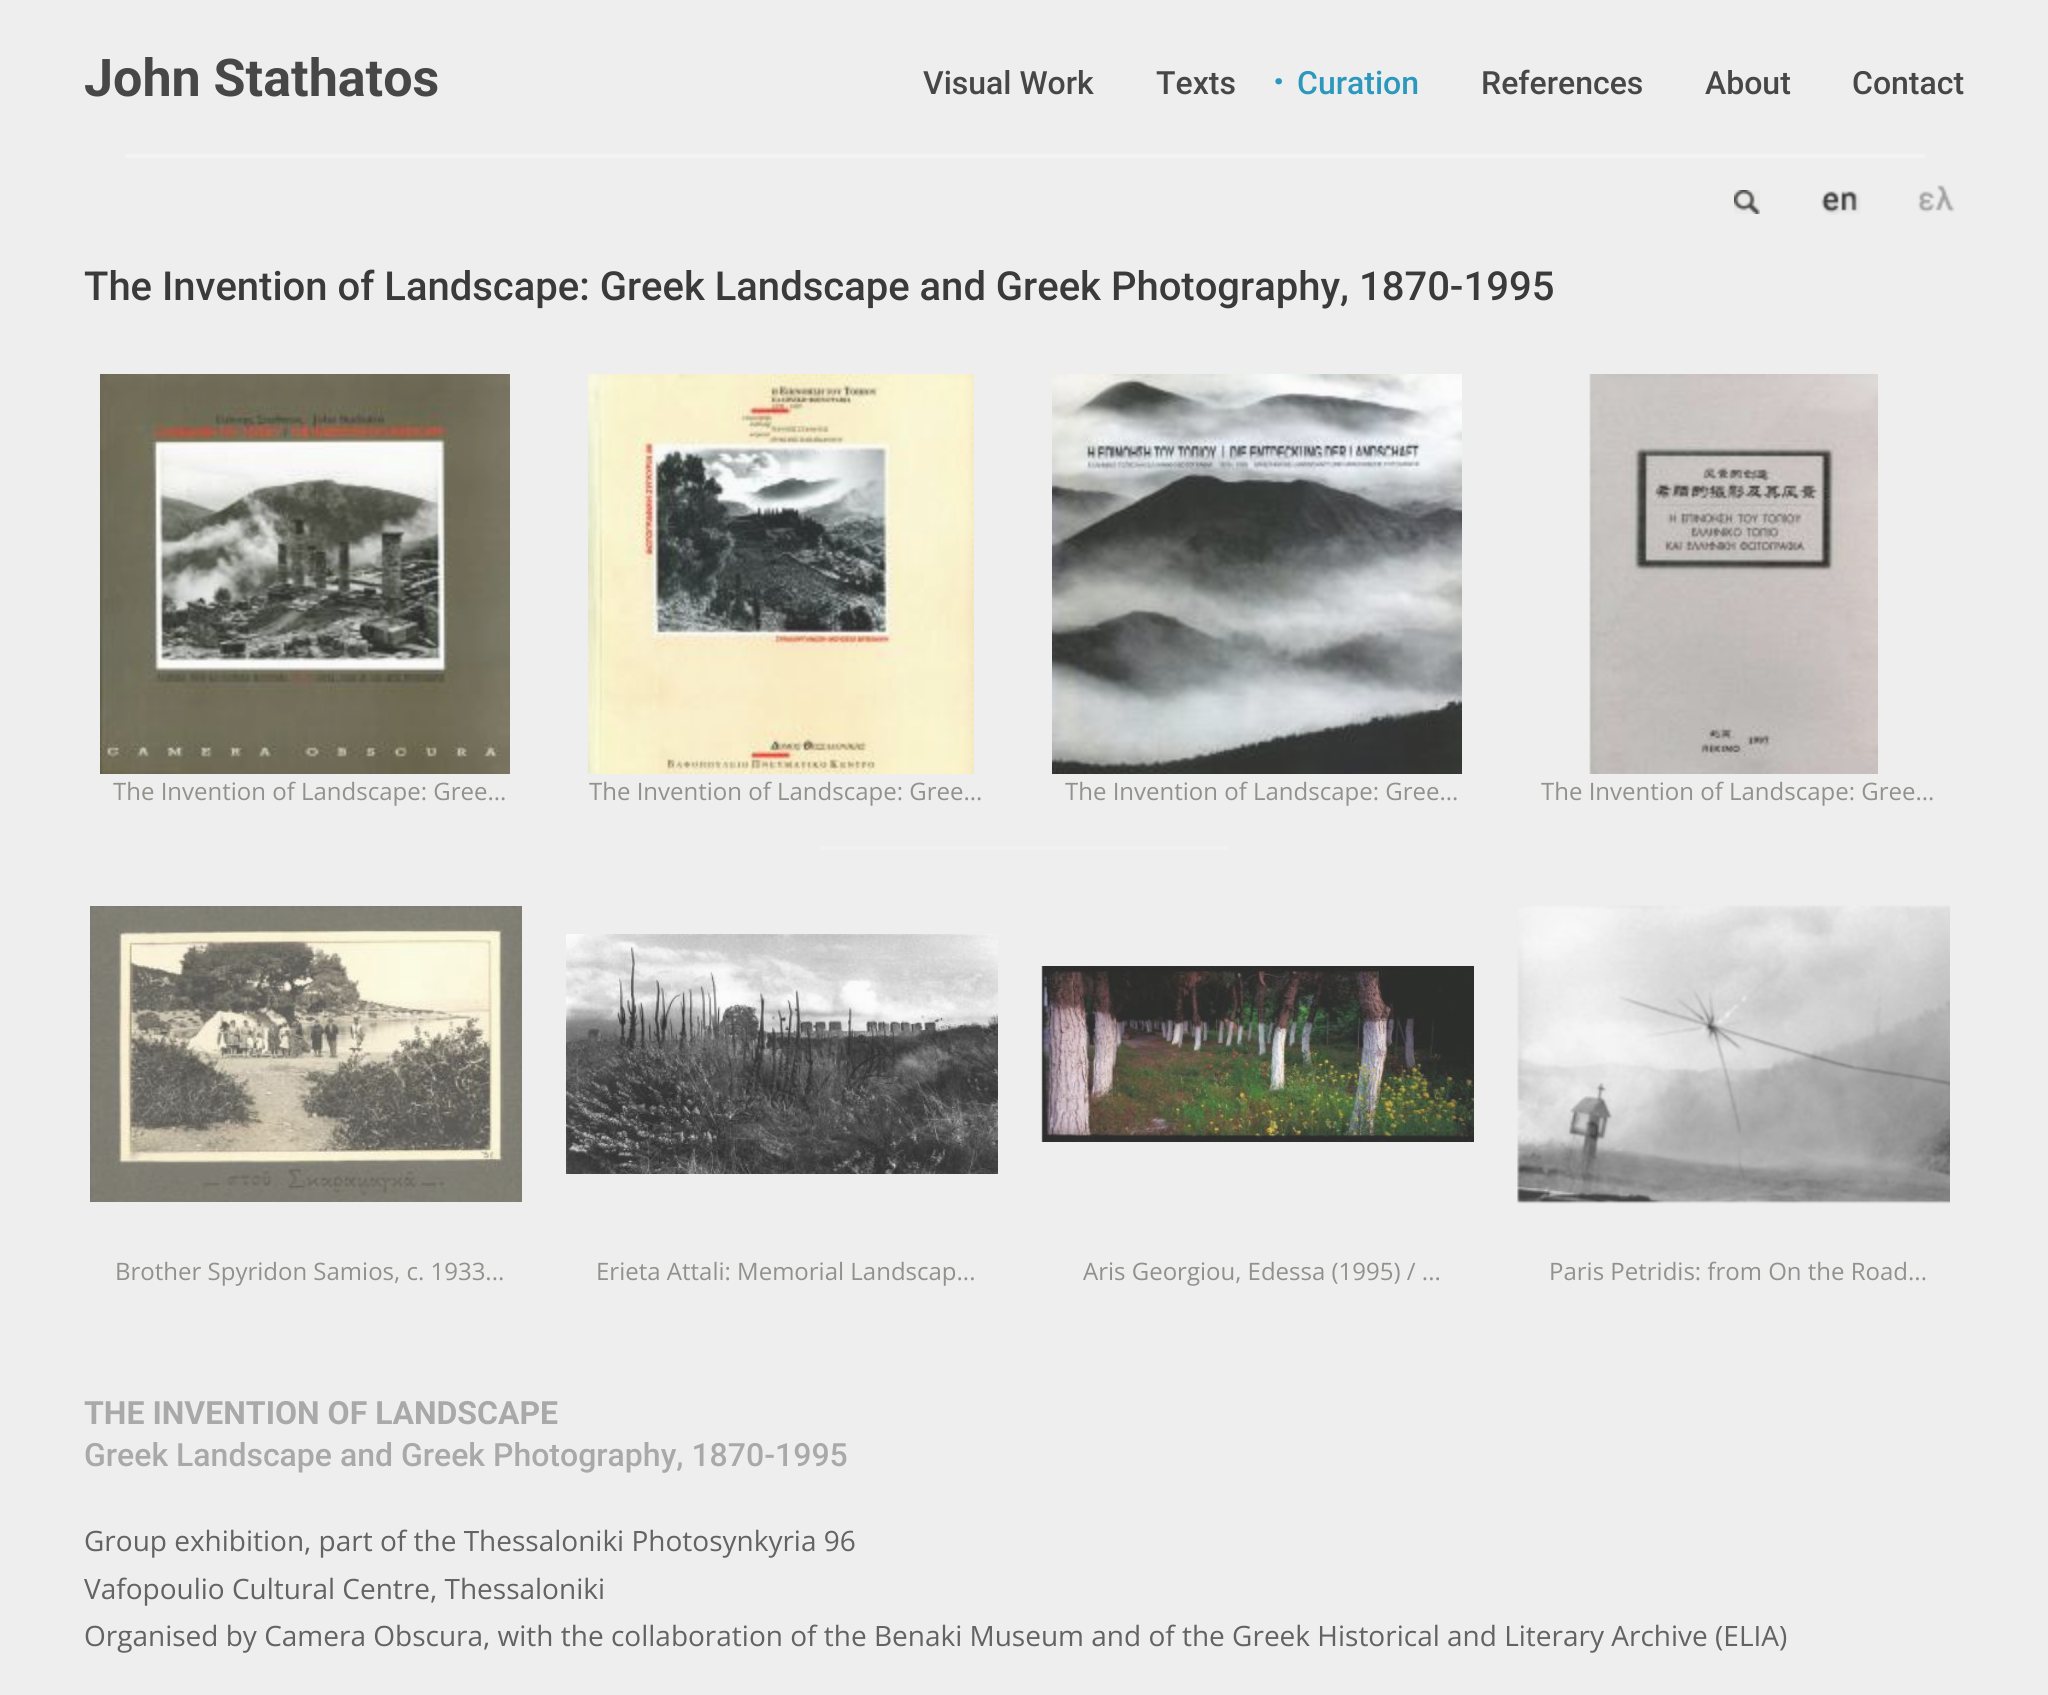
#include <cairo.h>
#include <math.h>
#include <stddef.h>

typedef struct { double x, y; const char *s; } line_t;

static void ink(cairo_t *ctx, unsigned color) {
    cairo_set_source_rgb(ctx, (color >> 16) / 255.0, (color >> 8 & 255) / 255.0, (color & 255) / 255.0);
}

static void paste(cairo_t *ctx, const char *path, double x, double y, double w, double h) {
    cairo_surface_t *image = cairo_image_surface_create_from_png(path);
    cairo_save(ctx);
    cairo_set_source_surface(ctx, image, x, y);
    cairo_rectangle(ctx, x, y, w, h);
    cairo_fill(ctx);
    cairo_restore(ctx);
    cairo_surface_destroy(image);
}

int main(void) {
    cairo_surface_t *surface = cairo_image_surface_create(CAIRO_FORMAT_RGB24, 2048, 1695);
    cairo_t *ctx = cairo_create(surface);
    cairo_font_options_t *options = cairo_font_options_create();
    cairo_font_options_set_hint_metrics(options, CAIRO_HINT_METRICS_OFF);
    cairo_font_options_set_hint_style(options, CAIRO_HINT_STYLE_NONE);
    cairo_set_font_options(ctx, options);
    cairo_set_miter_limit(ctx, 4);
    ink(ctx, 0xEEEEEE);
    cairo_paint(ctx);
    paste(ctx, "media/1.png", 819, 846, 410, 4);
    paste(ctx, "media/2.png", 125, 154, 1800, 4);
    cairo_select_font_face(ctx, "Roboto", CAIRO_FONT_SLANT_NORMAL, CAIRO_FONT_WEIGHT_BOLD);
    cairo_set_font_size(ctx, 52);
    ink(ctx, 0x474747);
    cairo_move_to(ctx, 84, 96);
    cairo_show_text(ctx, "John Stathatos");
    cairo_select_font_face(ctx, "Roboto Medium", CAIRO_FONT_SLANT_NORMAL, CAIRO_FONT_WEIGHT_NORMAL);
    cairo_set_font_size(ctx, 32);
    cairo_move_to(ctx, 923, 94);
    cairo_show_text(ctx, "Visual Work");
    cairo_move_to(ctx, 1156, 94);
    cairo_show_text(ctx, "Texts");
    cairo_set_font_size(ctx, 48);
    ink(ctx, 0x2C98BD);
    cairo_move_to(ctx, 1272, 98);
    cairo_show_text(ctx, "·");
    cairo_set_font_size(ctx, 32);
    cairo_move_to(ctx, 1297, 94);
    cairo_show_text(ctx, "Curation");
    ink(ctx, 0x474747);
    {
        static const line_t items[] = {
            {1481, 94, "References"},
            {1705, 94, "About"},
            {1852, 94, "Contact"},
        };
        for (size_t i = 0; i < sizeof items / sizeof *items; i++) {
            cairo_move_to(ctx, items[i].x, items[i].y);
            cairo_show_text(ctx, items[i].s);
        }
    }
    paste(ctx, "media/3.png", 1734, 190, 26, 24);
    paste(ctx, "media/4.png", 1821, 191, 40, 24);
    paste(ctx, "media/5.png", 1917, 185, 38, 28);
    cairo_set_font_size(ctx, 40);
    ink(ctx, 0x3A3A3A);
    cairo_move_to(ctx, 84, 300);
    cairo_show_text(ctx, "The Invention of Landscape: Greek Landscape and Greek Photography, 1870-1995");
    paste(ctx, "media/6.png", 100, 374, 410, 400);
    cairo_select_font_face(ctx, "Open Sans", CAIRO_FONT_SLANT_NORMAL, CAIRO_FONT_WEIGHT_NORMAL);
    cairo_set_font_size(ctx, 24);
    ink(ctx, 0x91918D);
    cairo_move_to(ctx, 113, 800);
    cairo_show_text(ctx, "The Invention of Landscape: Gree...");
    paste(ctx, "media/7.png", 588, 374, 386, 400);
    cairo_move_to(ctx, 589, 800);
    cairo_show_text(ctx, "The Invention of Landscape: Gree...");
    paste(ctx, "media/8.png", 1052, 374, 410, 400);
    cairo_move_to(ctx, 1065, 800);
    cairo_show_text(ctx, "The Invention of Landscape: Gree...");
    paste(ctx, "media/9.png", 1589, 374, 289, 400);
    cairo_move_to(ctx, 1541, 800);
    cairo_show_text(ctx, "The Invention of Landscape: Gree...");
    paste(ctx, "media/10.png", 90, 906, 432, 296);
    cairo_move_to(ctx, 115, 1280);
    cairo_show_text(ctx, "Brother Spyridon Samios, c. 1933...");
    paste(ctx, "media/11.png", 566, 934, 432, 240);
    cairo_move_to(ctx, 596, 1280);
    cairo_show_text(ctx, "Erieta Attali: Memorial Landscap...");
    paste(ctx, "media/12.png", 1041, 966, 433, 176);
    cairo_move_to(ctx, 1083, 1280);
    cairo_show_text(ctx, "Aris Georgiou, Edessa (1995) / ...");
    paste(ctx, "media/13.png", 1517, 905, 433, 299);
    cairo_move_to(ctx, 1549, 1280);
    cairo_show_text(ctx, "Paris Petridis: from On the Road...");
    cairo_select_font_face(ctx, "Roboto", CAIRO_FONT_SLANT_NORMAL, CAIRO_FONT_WEIGHT_BOLD);
    cairo_set_font_size(ctx, 32);
    ink(ctx, 0xA9A9A9);
    cairo_move_to(ctx, 84, 1424);
    cairo_show_text(ctx, "THE INVENTION OF LANDSCAPE");
    cairo_select_font_face(ctx, "Roboto Medium", CAIRO_FONT_SLANT_NORMAL, CAIRO_FONT_WEIGHT_NORMAL);
    cairo_move_to(ctx, 84, 1466);
    cairo_show_text(ctx, "Greek Landscape and Greek Photography, 1870-1995");
    cairo_select_font_face(ctx, "Open Sans", CAIRO_FONT_SLANT_NORMAL, CAIRO_FONT_WEIGHT_NORMAL);
    cairo_set_font_size(ctx, 28);
    ink(ctx, 0x636363);
    {
        static const line_t items[] = {
            {84, 1551, "Group exhibition, part of the Thessaloniki Photosynkyria 96"},
            {84, 1599, "Vafopoulio Cultural Centre, Thessaloniki"},
            {84, 1646, "Organised by Camera Obscura, with the collaboration of the Benaki Museum and of the Greek Historical and Literary Archive (ELIA)"},
        };
        for (size_t i = 0; i < sizeof items / sizeof *items; i++) {
            cairo_move_to(ctx, items[i].x, items[i].y);
            cairo_show_text(ctx, items[i].s);
        }
    }
    cairo_surface_write_to_png(surface, "image.png");
    cairo_font_options_destroy(options);
    cairo_destroy(ctx);
    cairo_surface_destroy(surface);
    return 0;
}
